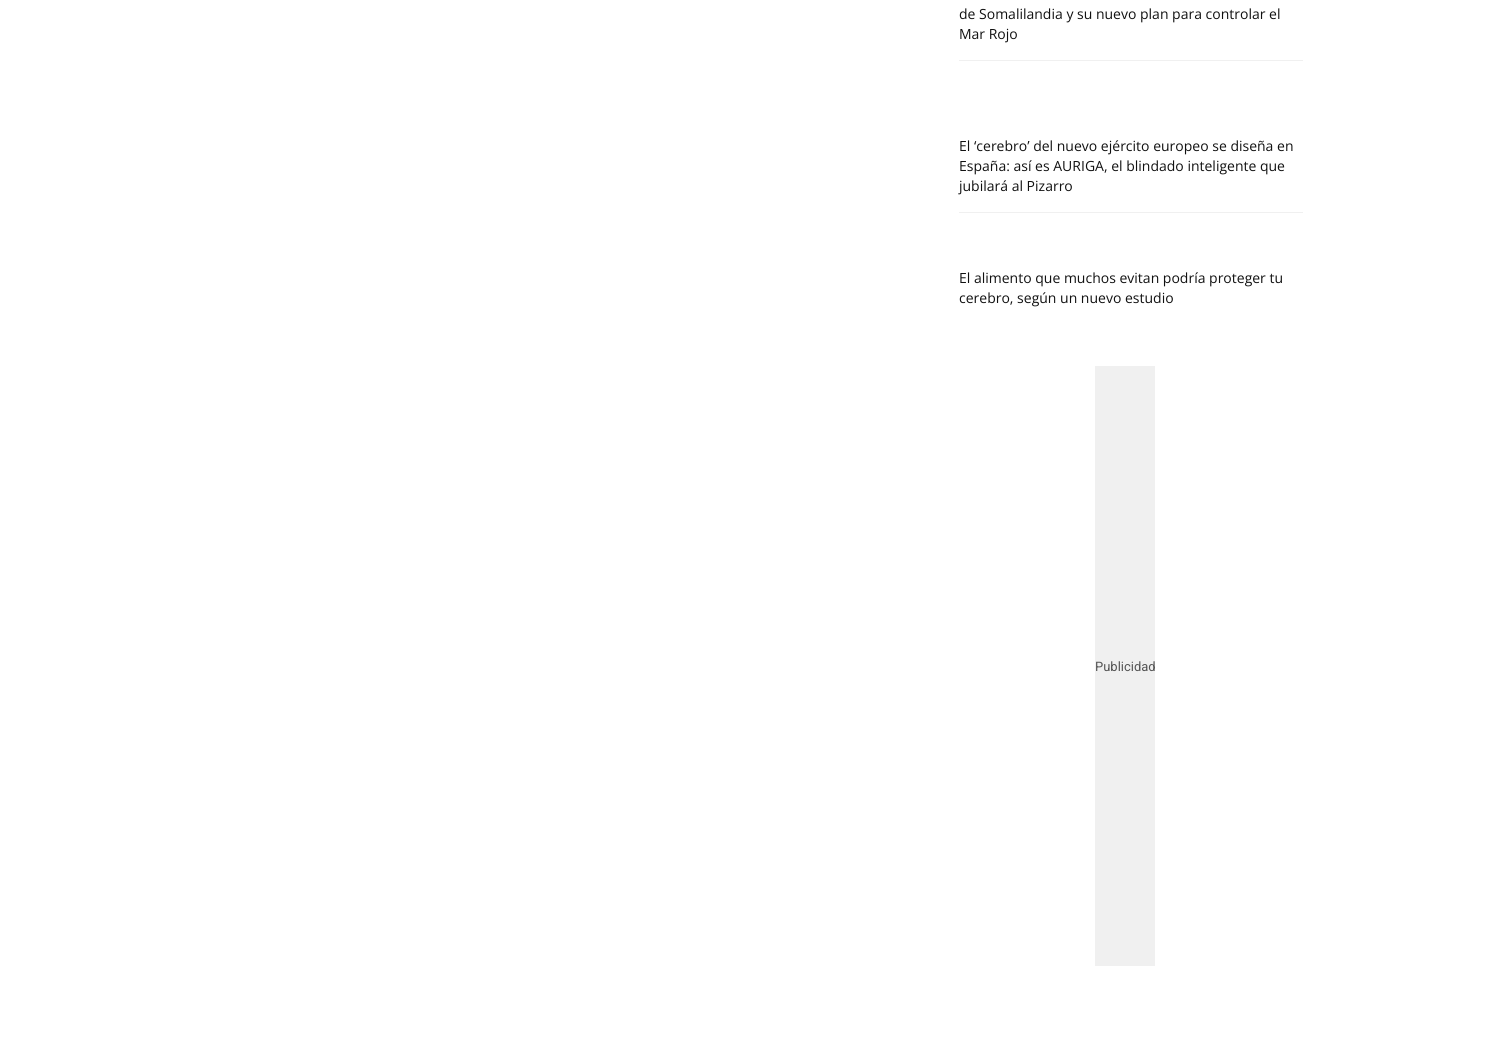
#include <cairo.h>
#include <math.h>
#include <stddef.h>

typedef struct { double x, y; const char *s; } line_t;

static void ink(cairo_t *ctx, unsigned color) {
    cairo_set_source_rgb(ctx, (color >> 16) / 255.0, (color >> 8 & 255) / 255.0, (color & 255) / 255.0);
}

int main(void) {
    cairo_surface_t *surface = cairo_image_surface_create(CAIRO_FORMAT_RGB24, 1490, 1044);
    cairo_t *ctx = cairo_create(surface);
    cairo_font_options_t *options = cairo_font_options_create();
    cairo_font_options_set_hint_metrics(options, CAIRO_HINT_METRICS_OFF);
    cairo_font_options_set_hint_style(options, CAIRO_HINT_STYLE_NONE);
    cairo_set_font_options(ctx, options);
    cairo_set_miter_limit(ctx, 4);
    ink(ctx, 0xFFFFFF);
    cairo_paint(ctx);
    ink(ctx, 0xF0F0F0);
    cairo_rectangle(ctx, 959, 60, 344, 1);
    cairo_fill(ctx);
    cairo_select_font_face(ctx, "Open Sans", CAIRO_FONT_SLANT_NORMAL, CAIRO_FONT_WEIGHT_NORMAL);
    cairo_set_font_size(ctx, 14);
    ink(ctx, 0x111111);
    cairo_move_to(ctx, 959, 19);
    cairo_show_text(ctx, "de Somalilandia y su nuevo plan para controlar el");
    cairo_move_to(ctx, 959, 39);
    cairo_show_text(ctx, "Mar Rojo");
    ink(ctx, 0xF0F0F0);
    cairo_rectangle(ctx, 959, 212, 344, 1);
    cairo_fill(ctx);
    ink(ctx, 0x111111);
    {
        static const line_t items[] = {
            {959, 151, "El ‘cerebro’ del nuevo ejército europeo se diseña en"},
            {959, 171, "España: así es AURIGA, el blindado inteligente que"},
            {959, 191, "jubilará al Pizarro"},
            {959, 283, "El alimento que muchos evitan podría proteger tu"},
            {959, 303, "cerebro, según un nuevo estudio"},
        };
        for (size_t i = 0; i < sizeof items / sizeof *items; i++) {
            cairo_move_to(ctx, items[i].x, items[i].y);
            cairo_show_text(ctx, items[i].s);
        }
    }
    ink(ctx, 0xF0F0F0);
    cairo_rectangle(ctx, 1095, 366, 60, 600);
    cairo_fill(ctx);
    cairo_select_font_face(ctx, "Roboto", CAIRO_FONT_SLANT_NORMAL, CAIRO_FONT_WEIGHT_NORMAL);
    cairo_set_font_size(ctx, 13);
    ink(ctx, 0x555555);
    cairo_move_to(ctx, 1095, 671);
    cairo_show_text(ctx, "Publicidad");
    cairo_surface_write_to_png(surface, "image.png");
    cairo_font_options_destroy(options);
    cairo_destroy(ctx);
    cairo_surface_destroy(surface);
    return 0;
}
